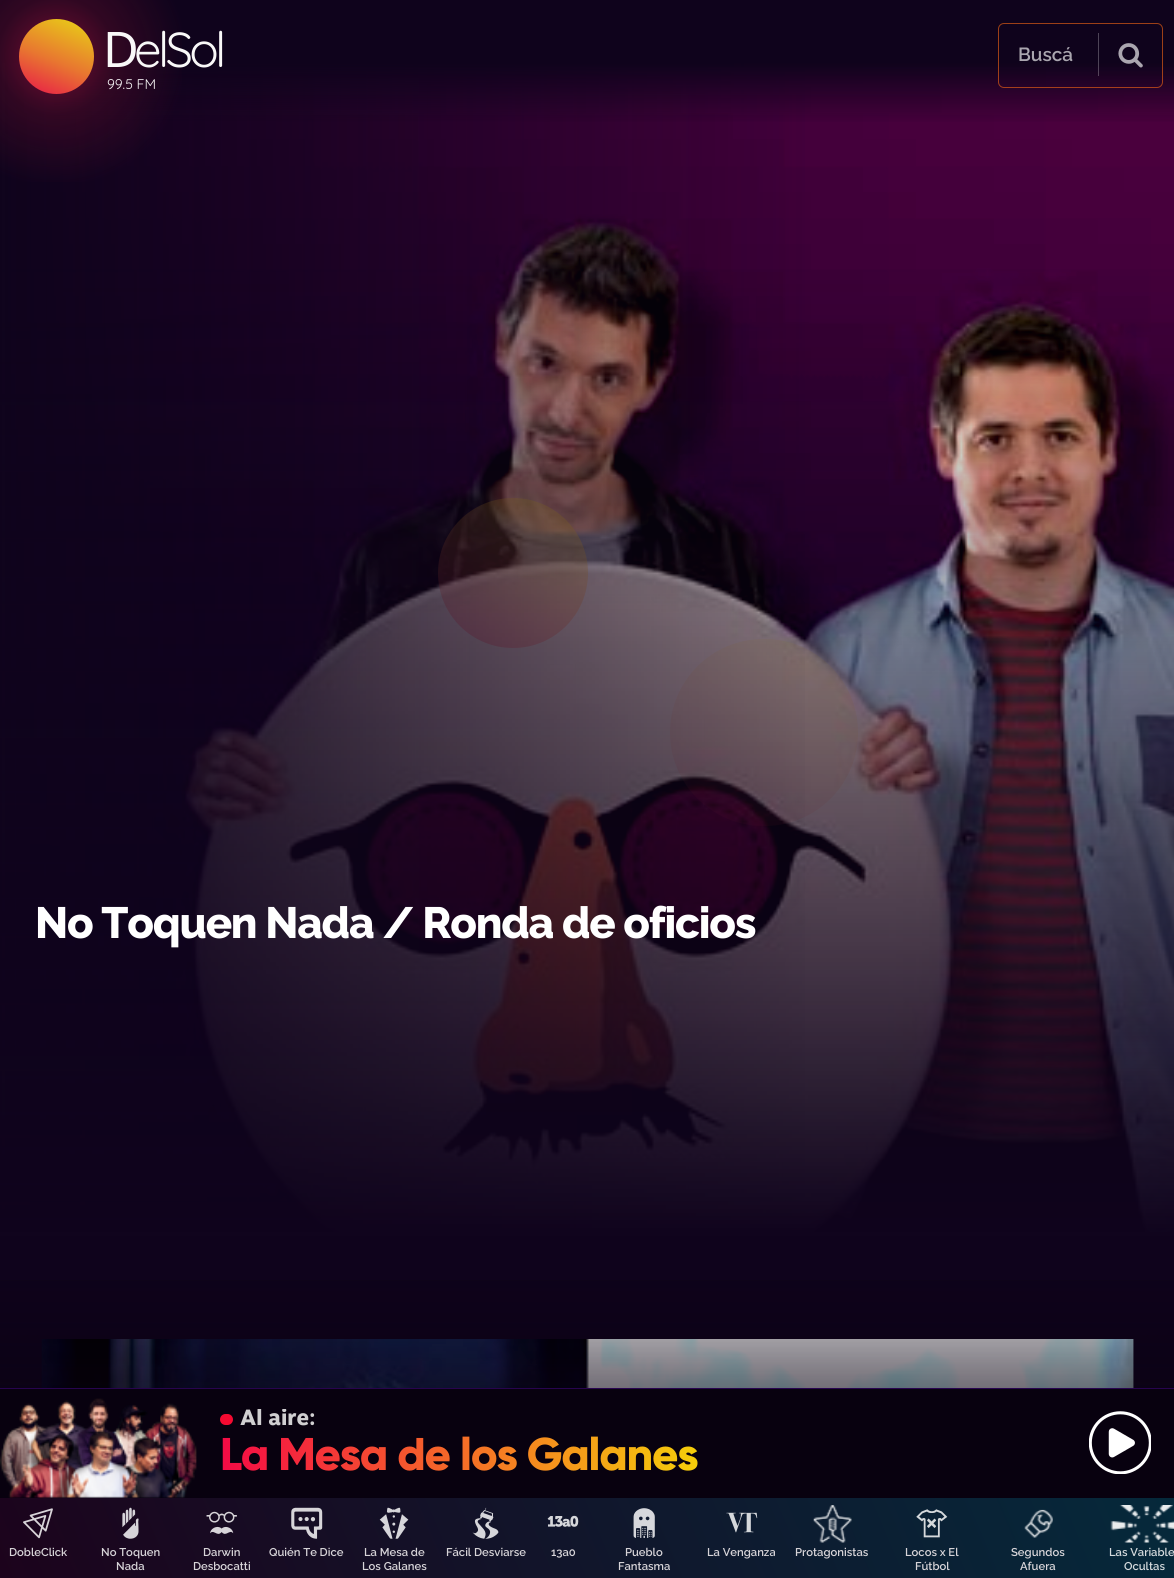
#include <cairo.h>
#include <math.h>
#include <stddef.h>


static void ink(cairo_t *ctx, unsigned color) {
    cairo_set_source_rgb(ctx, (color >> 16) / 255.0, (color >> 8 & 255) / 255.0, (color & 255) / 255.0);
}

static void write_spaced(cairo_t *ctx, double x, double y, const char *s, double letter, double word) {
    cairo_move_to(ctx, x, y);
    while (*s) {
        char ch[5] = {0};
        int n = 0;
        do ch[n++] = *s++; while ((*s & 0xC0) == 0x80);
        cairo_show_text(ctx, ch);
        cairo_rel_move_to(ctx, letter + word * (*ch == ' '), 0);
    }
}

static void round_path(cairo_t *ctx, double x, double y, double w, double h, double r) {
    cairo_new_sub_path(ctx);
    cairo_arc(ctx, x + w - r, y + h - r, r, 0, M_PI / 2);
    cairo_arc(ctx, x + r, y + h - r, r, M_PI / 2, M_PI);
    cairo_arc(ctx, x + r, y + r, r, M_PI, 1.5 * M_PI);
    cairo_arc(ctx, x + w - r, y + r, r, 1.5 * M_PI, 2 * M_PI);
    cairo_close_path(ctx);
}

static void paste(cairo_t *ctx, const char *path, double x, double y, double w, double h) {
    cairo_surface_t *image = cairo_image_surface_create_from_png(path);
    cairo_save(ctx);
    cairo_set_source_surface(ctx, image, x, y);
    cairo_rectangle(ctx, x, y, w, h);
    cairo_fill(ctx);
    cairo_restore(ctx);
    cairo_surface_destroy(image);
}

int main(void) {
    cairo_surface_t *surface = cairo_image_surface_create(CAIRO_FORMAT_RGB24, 1174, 1578);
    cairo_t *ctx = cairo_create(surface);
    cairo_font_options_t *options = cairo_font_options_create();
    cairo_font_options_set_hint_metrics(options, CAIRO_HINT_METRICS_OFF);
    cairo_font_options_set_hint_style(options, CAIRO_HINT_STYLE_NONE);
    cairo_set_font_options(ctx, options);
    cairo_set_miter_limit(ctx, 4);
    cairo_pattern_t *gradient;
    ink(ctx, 0xFFFFFF);
    cairo_paint(ctx);
    ink(ctx, 0x0F031C);
    cairo_rectangle(ctx, 0, 0, 1174, 63);
    cairo_fill(ctx);
    paste(ctx, "media/2.png", 5, 63, 1169, 1169);
    gradient = cairo_pattern_create_linear(0, 650, 823, 650);
    cairo_pattern_add_color_stop_rgba(gradient, 0, 0.059, 0.012, 0.11, 1);
    cairo_pattern_add_color_stop_rgba(gradient, 1, 0.059, 0.012, 0.11, 0);
    cairo_set_source(ctx, gradient);
    cairo_pattern_destroy(gradient);
    cairo_rectangle(ctx, 0, 63, 805, 1169);
    cairo_fill(ctx);
    gradient = cairo_pattern_create_linear(588, 125, 588, 63);
    cairo_pattern_add_color_stop_rgba(gradient, 0, 0.059, 0.012, 0.11, 0);
    cairo_pattern_add_color_stop_rgba(gradient, 1, 0.059, 0.012, 0.11, 1);
    cairo_set_source(ctx, gradient);
    cairo_pattern_destroy(gradient);
    cairo_rectangle(ctx, 54, 63, 1120, 59);
    cairo_fill(ctx);
    gradient = cairo_pattern_create_radial(56, 56, 0, 56, 56, 131);
    cairo_pattern_add_color_stop_rgba(gradient, 0, 0.91, 0.082, 0.29, 0.56);
    cairo_pattern_add_color_stop_rgba(gradient, 0.45, 0.478, 0.067, 0.184, 0.31);
    cairo_pattern_add_color_stop_rgba(gradient, 1, 0.478, 0.067, 0.184, 0);
    cairo_set_source(ctx, gradient);
    cairo_pattern_destroy(gradient);
    cairo_rectangle(ctx, 0, 0, 182, 182);
    cairo_fill(ctx);
    gradient = cairo_pattern_create_linear(37, 102, 75, 11);
    cairo_pattern_add_color_stop_rgba(gradient, 0, 0.91, 0.082, 0.29, 1);
    cairo_pattern_add_color_stop_rgba(gradient, 0.45, 0.91, 0.463, 0.188, 1);
    cairo_pattern_add_color_stop_rgba(gradient, 1, 0.91, 0.839, 0.082, 1);
    cairo_set_source(ctx, gradient);
    cairo_pattern_destroy(gradient);
    cairo_arc(ctx, 56.5, 56.5, 37.5, 0, 2 * M_PI);
    cairo_fill(ctx);
    cairo_select_font_face(ctx, "Noto Sans", CAIRO_FONT_SLANT_NORMAL, CAIRO_FONT_WEIGHT_NORMAL);
    cairo_set_font_size(ctx, 49);
    ink(ctx, 0xF9F8F8);
    write_spaced(ctx, 103, 67, "D", -3.75, 0);
    cairo_select_font_face(ctx, "Quicksand", CAIRO_FONT_SLANT_NORMAL, CAIRO_FONT_WEIGHT_NORMAL);
    write_spaced(ctx, 134, 67, "elSol", -3.75, 0);
    cairo_set_font_size(ctx, 14);
    cairo_move_to(ctx, 107, 89);
    cairo_show_text(ctx, "99.5 FM");
    round_path(ctx, 998.5, 23.5, 164, 64, 5.5);
    cairo_set_source_rgba(ctx, 0.91, 0.384, 0.082, 0.65);
    cairo_set_line_width(ctx, 1);
    cairo_stroke(ctx);
    cairo_select_font_face(ctx, "Raleway SemiBold", CAIRO_FONT_SLANT_NORMAL, CAIRO_FONT_WEIGHT_NORMAL);
    cairo_set_font_size(ctx, 19);
    ink(ctx, 0xAAA6AF);
    cairo_move_to(ctx, 1018, 61);
    cairo_show_text(ctx, "Buscá");
    cairo_set_source_rgba(ctx, 1, 1, 1, 0.26);
    cairo_rectangle(ctx, 1098, 33, 1, 43);
    cairo_fill(ctx);
    paste(ctx, "media/1.png", 1118, 43, 25, 25);
    gradient = cairo_pattern_create_linear(588, 1238, 588, 239);
    cairo_pattern_add_color_stop_rgba(gradient, 0, 0.059, 0.012, 0.11, 1);
    cairo_pattern_add_color_stop_rgba(gradient, 1, 0.059, 0.012, 0.11, 0);
    cairo_set_source(ctx, gradient);
    cairo_pattern_destroy(gradient);
    cairo_rectangle(ctx, 0, 269, 1174, 969);
    cairo_fill(ctx);
    cairo_select_font_face(ctx, "Raleway ExtraBold", CAIRO_FONT_SLANT_NORMAL, CAIRO_FONT_WEIGHT_NORMAL);
    cairo_set_font_size(ctx, 43.75);
    ink(ctx, 0xFFFFFF);
    write_spaced(ctx, 35, 938, "No Toquen Nada / Ronda de oficios", -1.25, 0);
    gradient = cairo_pattern_create_linear(587, 1238, 588, 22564);
    cairo_pattern_add_color_stop_rgba(gradient, 0, 0.059, 0.012, 0.11, 1);
    cairo_pattern_add_color_stop_rgba(gradient, 0.5, 0.012, 0.012, 0.11, 1);
    cairo_pattern_add_color_stop_rgba(gradient, 1, 0.012, 0.012, 0.11, 1);
    cairo_set_source(ctx, gradient);
    cairo_pattern_destroy(gradient);
    cairo_rectangle(ctx, 0, 1238, 1174, 150);
    cairo_fill(ctx);
    paste(ctx, "media/3.png", 41, 1339, 1093, 49);
    gradient = cairo_pattern_create_linear(587, 1339, 588, 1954);
    cairo_pattern_add_color_stop_rgba(gradient, 0, 0, 0, 0, 0.04);
    cairo_pattern_add_color_stop_rgba(gradient, 1, 0, 0, 0, 0);
    cairo_set_source(ctx, gradient);
    cairo_pattern_destroy(gradient);
    cairo_rectangle(ctx, 114, 1339, 1020, 49);
    cairo_fill(ctx);
    ink(ctx, 0x08010F);
    cairo_rectangle(ctx, 0, 1389, 1174, 109);
    cairo_fill(ctx);
    gradient = cairo_pattern_create_linear(588, 1229, 588, 1388);
    cairo_pattern_add_color_stop_rgba(gradient, 0, 0.031, 0.004, 0.059, 0);
    cairo_pattern_add_color_stop_rgba(gradient, 1, 0.031, 0.004, 0.059, 0.51);
    cairo_set_source(ctx, gradient);
    cairo_pattern_destroy(gradient);
    cairo_rectangle(ctx, 0, 1280, 1174, 108);
    cairo_fill(ctx);
    ink(ctx, 0x28044F);
    cairo_rectangle(ctx, 0, 1388, 1174, 1);
    cairo_fill(ctx);
    paste(ctx, "media/4.png", 0, 1398, 197, 100);
    ink(ctx, 0xF50A31);
    round_path(ctx, 220, 1414, 13, 11, 5.5);
    cairo_fill(ctx);
    cairo_save(ctx);
    cairo_rectangle(ctx, 220, 1409, 845, 21);
    cairo_clip(ctx);
    cairo_select_font_face(ctx, "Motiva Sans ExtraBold", CAIRO_FONT_SLANT_NORMAL, CAIRO_FONT_WEIGHT_NORMAL);
    cairo_set_font_size(ctx, 22);
    ink(ctx, 0xD0CFD1);
    cairo_move_to(ctx, 240, 1425);
    cairo_show_text(ctx, "Al aire:");
    cairo_restore(ctx);
    cairo_select_font_face(ctx, "Gilroy ExtraBold", CAIRO_FONT_SLANT_NORMAL, CAIRO_FONT_WEIGHT_NORMAL);
    cairo_set_font_size(ctx, 45.75);
    gradient = cairo_pattern_create_linear(220, 1456, 698, 1456);
    cairo_pattern_add_color_stop_rgba(gradient, 0, 0.961, 0.039, 0.271, 1);
    cairo_pattern_add_color_stop_rgba(gradient, 1, 0.961, 0.808, 0.039, 1);
    cairo_set_source(ctx, gradient);
    cairo_pattern_destroy(gradient);
    write_spaced(ctx, 220, 1470, "La Mesa de los Galanes", -1.25, 0);
    paste(ctx, "media/5.png", 1089, 1411, 62, 63);
    gradient = cairo_pattern_create_linear(75, 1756, 1100, 1321);
    cairo_pattern_add_color_stop_rgba(gradient, 0, 0.11, 0.012, 0.11, 1);
    cairo_pattern_add_color_stop_rgba(gradient, 1, 0.02, 0.161, 0.231, 1);
    cairo_set_source(ctx, gradient);
    cairo_pattern_destroy(gradient);
    cairo_rectangle(ctx, 0, 1498, 1174, 80);
    cairo_fill(ctx);
    paste(ctx, "media/6.png", 23, 1508, 30, 31);
    cairo_select_font_face(ctx, "Raleway SemiBold", CAIRO_FONT_SLANT_NORMAL, CAIRO_FONT_WEIGHT_NORMAL);
    cairo_set_font_size(ctx, 11.25);
    ink(ctx, 0xD7D4D8);
    cairo_move_to(ctx, 9, 1556);
    cairo_show_text(ctx, "DobleClick");
    paste(ctx, "media/7.png", 122, 1507, 17, 32);
    cairo_move_to(ctx, 101, 1556);
    cairo_show_text(ctx, "No Toquen");
    cairo_move_to(ctx, 116, 1570);
    cairo_show_text(ctx, "Nada");
    paste(ctx, "media/8.png", 206, 1511, 31, 23);
    cairo_move_to(ctx, 203, 1556);
    cairo_show_text(ctx, "Darwin");
    cairo_move_to(ctx, 193, 1570);
    cairo_show_text(ctx, "Desbocatti");
    paste(ctx, "media/9.png", 291, 1507, 32, 32);
    cairo_move_to(ctx, 269, 1556);
    cairo_show_text(ctx, "Quién Te Dice");
    paste(ctx, "media/10.png", 379, 1507, 30, 32);
    cairo_move_to(ctx, 364, 1556);
    cairo_show_text(ctx, "La Mesa de");
    cairo_move_to(ctx, 362, 1570);
    cairo_show_text(ctx, "Los Galanes");
    paste(ctx, "media/11.png", 472, 1507, 27, 32);
    cairo_move_to(ctx, 446, 1556);
    cairo_show_text(ctx, "Fácil Desviarse");
    paste(ctx, "media/12.png", 547, 1515, 32, 12);
    cairo_move_to(ctx, 551, 1556);
    cairo_show_text(ctx, "13a0");
    paste(ctx, "media/13.png", 633, 1508, 22, 30);
    cairo_move_to(ctx, 625, 1556);
    cairo_show_text(ctx, "Pueblo");
    cairo_move_to(ctx, 618, 1570);
    cairo_show_text(ctx, "Fantasma");
    paste(ctx, "media/14.png", 726, 1512, 32, 21);
    cairo_move_to(ctx, 707, 1556);
    cairo_show_text(ctx, "La Venganza");
    paste(ctx, "media/15.png", 813, 1505, 39, 38);
    cairo_move_to(ctx, 795, 1556);
    cairo_show_text(ctx, "Protagonistas");
    paste(ctx, "media/16.png", 916, 1509, 32, 29);
    cairo_move_to(ctx, 905, 1556);
    cairo_show_text(ctx, "Locos x El");
    cairo_move_to(ctx, 915, 1570);
    cairo_show_text(ctx, "Fútbol");
    paste(ctx, "media/17.png", 1024, 1509, 29, 29);
    cairo_move_to(ctx, 1011, 1556);
    cairo_show_text(ctx, "Segundos");
    cairo_move_to(ctx, 1020, 1570);
    cairo_show_text(ctx, "Afuera");
    paste(ctx, "media/18.png", 1110, 1505, 64, 38);
    ink(ctx, 0xD5DADD);
    cairo_move_to(ctx, 1109, 1556);
    cairo_show_text(ctx, "Las Variable");
    cairo_move_to(ctx, 1124, 1570);
    cairo_show_text(ctx, "Ocultas");
    cairo_surface_write_to_png(surface, "image.png");
    cairo_font_options_destroy(options);
    cairo_destroy(ctx);
    cairo_surface_destroy(surface);
    return 0;
}
